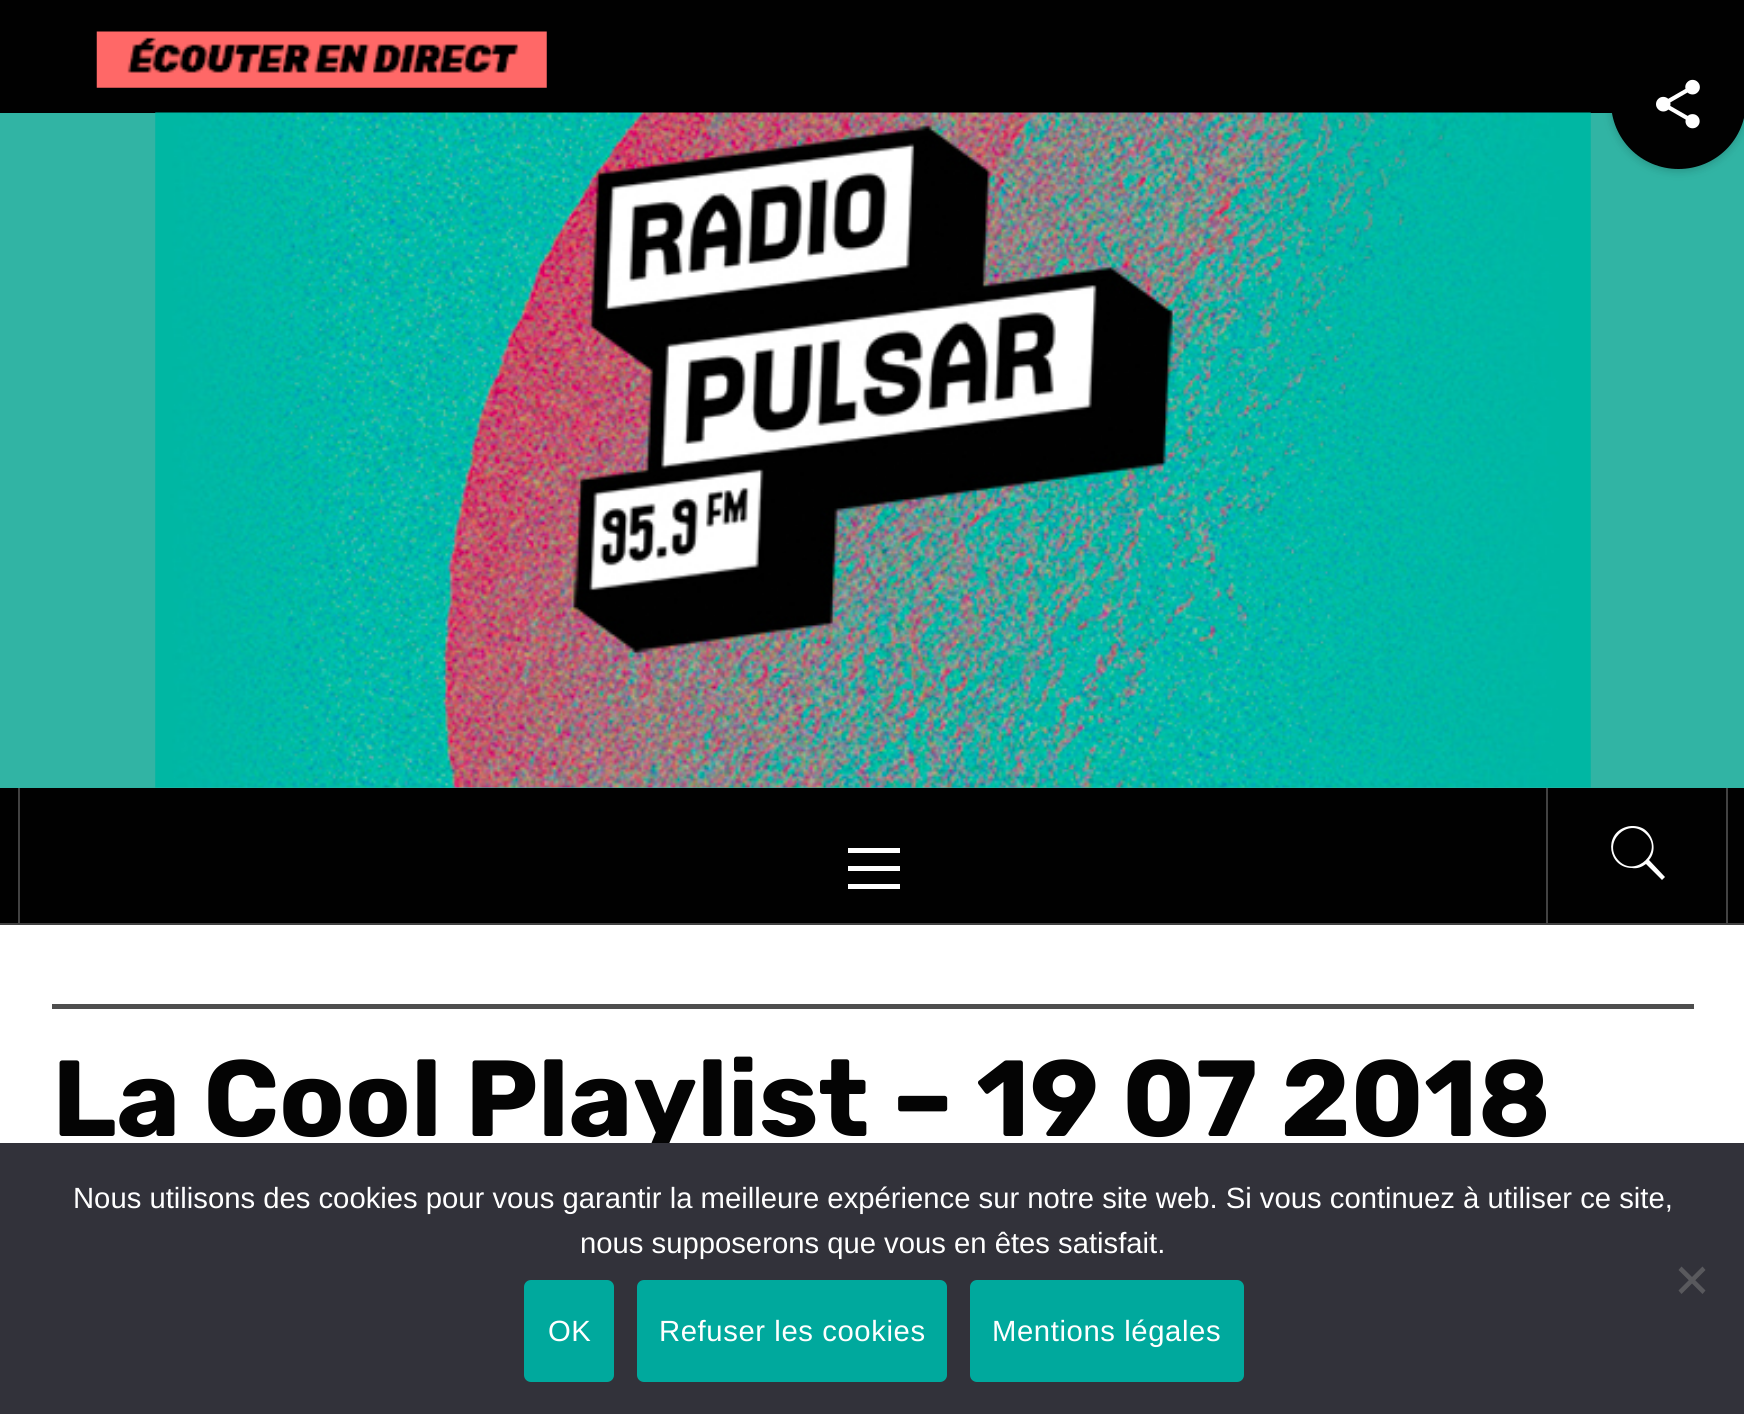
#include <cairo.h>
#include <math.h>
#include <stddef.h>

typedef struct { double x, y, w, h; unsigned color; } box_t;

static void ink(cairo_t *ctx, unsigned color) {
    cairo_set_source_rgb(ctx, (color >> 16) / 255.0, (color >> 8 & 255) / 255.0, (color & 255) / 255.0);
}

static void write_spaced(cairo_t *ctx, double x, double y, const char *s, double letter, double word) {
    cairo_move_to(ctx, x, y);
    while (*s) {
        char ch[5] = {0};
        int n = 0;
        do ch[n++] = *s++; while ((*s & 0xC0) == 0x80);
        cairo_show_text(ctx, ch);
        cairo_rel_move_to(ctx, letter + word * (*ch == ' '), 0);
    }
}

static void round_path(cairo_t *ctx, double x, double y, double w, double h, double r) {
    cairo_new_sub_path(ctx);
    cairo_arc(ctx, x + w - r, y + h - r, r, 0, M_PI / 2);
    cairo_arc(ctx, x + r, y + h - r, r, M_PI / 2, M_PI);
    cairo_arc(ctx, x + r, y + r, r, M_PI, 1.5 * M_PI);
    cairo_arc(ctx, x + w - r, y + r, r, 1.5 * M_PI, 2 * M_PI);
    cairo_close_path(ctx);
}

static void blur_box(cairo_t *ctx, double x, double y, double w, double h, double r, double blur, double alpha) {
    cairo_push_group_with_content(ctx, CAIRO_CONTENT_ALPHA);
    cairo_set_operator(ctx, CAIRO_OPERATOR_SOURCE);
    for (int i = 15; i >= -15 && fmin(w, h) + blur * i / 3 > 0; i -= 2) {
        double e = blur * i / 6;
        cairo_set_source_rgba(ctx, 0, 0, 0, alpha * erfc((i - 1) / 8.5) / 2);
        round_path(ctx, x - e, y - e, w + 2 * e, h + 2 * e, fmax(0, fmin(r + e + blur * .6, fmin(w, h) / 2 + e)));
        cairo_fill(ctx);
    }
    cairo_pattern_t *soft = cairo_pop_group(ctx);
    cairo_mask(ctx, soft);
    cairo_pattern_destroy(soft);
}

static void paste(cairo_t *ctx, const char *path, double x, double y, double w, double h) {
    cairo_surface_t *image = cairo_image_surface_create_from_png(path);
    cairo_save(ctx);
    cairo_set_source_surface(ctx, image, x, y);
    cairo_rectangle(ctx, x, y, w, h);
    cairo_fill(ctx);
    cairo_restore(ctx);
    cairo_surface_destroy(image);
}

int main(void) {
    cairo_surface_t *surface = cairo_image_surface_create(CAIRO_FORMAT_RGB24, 1744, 1414);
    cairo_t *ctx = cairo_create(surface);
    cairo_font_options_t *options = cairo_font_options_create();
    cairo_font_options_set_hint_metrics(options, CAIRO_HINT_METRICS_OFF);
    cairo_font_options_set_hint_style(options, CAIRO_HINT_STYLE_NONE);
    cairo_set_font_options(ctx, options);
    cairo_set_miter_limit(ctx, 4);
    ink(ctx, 0xFFFFFF);
    cairo_paint(ctx);
    ink(ctx, 0x010101);
    cairo_rectangle(ctx, 0, 0, 1612, 113);
    cairo_fill(ctx);
    paste(ctx, "media/1.png", 96, 31, 451, 57);
    ink(ctx, 0x31B4A4);
    cairo_rectangle(ctx, 0, 113, 1744, 675);
    cairo_fill(ctx);
    ink(ctx, 0x000000);
    blur_box(ctx, 1611, 2, 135, 169, 67.5, 4.5, 0.2);
    ink(ctx, 0x010101);
    cairo_new_path(ctx);
    cairo_move_to(ctx, 1611, 0);
    cairo_line_to(ctx, 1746, 0);
    cairo_line_to(ctx, 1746, 101.5);
    cairo_curve_to(ctx, 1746, 139, 1716, 169, 1678.5, 169);
    cairo_curve_to(ctx, 1641, 169, 1611, 139, 1611, 101.5);
    cairo_close_path(ctx);
    cairo_fill(ctx);
    paste(ctx, "media/2.png", 1656, 79, 44, 50);
    paste(ctx, "media/3.png", 155, 112, 1436, 676);
    {
        static const box_t items[] = {
            {0, 788, 1744, 135, 0x010101},
            {0, 923, 1744, 2, 0x424242},
            {1726, 788, 2, 135, 0x424242},
            {18, 788, 2, 135, 0x424242},
            {848, 866, 52, 5, 0xFFFFFF},
            {848, 848, 52, 5, 0xFFFFFF},
            {848, 884, 52, 5, 0xFFFFFF},
            {1546, 788, 2, 135, 0x424242},
        };
        for (size_t i = 0; i < sizeof items / sizeof *items; i++) {
            ink(ctx, items[i].color);
            cairo_rectangle(ctx, items[i].x, items[i].y, items[i].w, items[i].h);
            cairo_fill(ctx);
        }
    }
    ink(ctx, 0xFFFFFF);
    cairo_new_path(ctx);
    cairo_move_to(ctx, 1665, 877);
    cairo_line_to(ctx, 1662, 880);
    cairo_line_to(ctx, 1646, 864);
    cairo_curve_to(ctx, 1642, 867, 1637, 869, 1632, 868);
    cairo_curve_to(ctx, 1608, 868, 1603, 834, 1626, 827);
    cairo_curve_to(ctx, 1632, 825, 1639, 826, 1644, 829);
    cairo_curve_to(ctx, 1654, 836, 1657, 851, 1649, 860);
    cairo_close_path(ctx);
    cairo_move_to(ctx, 1619, 861);
    cairo_curve_to(ctx, 1636, 878, 1664, 851, 1646, 834);
    cairo_curve_to(ctx, 1628, 816, 1601, 843, 1619, 861);
    cairo_close_path(ctx);
    cairo_fill(ctx);
    ink(ctx, 0x4E4E4E);
    cairo_rectangle(ctx, 52, 1004, 1642, 5);
    cairo_fill(ctx);
    cairo_select_font_face(ctx, "Rubik", CAIRO_FONT_SLANT_NORMAL, CAIRO_FONT_WEIGHT_BOLD);
    cairo_set_font_size(ctx, 108);
    ink(ctx, 0x040404);
    cairo_move_to(ctx, 52, 1136);
    cairo_show_text(ctx, "La Cool Playlist – 19 07 2018");
    ink(ctx, 0x32323A);
    cairo_rectangle(ctx, 0, 1143, 1744, 271);
    cairo_fill(ctx);
    cairo_select_font_face(ctx, "Liberation Sans", CAIRO_FONT_SLANT_NORMAL, CAIRO_FONT_WEIGHT_NORMAL);
    cairo_set_font_size(ctx, 29.25);
    ink(ctx, 0xFFFFFF);
    cairo_move_to(ctx, 73, 1208);
    cairo_show_text(ctx, "Nous utilisons des cookies pour vous garantir la meilleure expérience sur notre site web. Si vous continuez à utiliser ce site,");
    cairo_move_to(ctx, 580, 1253);
    cairo_show_text(ctx, "nous supposerons que vous en êtes satisfait.");
    ink(ctx, 0x59595D);
    cairo_new_path(ctx);
    cairo_move_to(ctx, 1702.5, 1266.5);
    cairo_line_to(ctx, 1705.5, 1270);
    cairo_line_to(ctx, 1681.5, 1294);
    cairo_line_to(ctx, 1678.5, 1290.5);
    cairo_close_path(ctx);
    cairo_fill(ctx);
    cairo_new_path(ctx);
    cairo_move_to(ctx, 1678.5, 1270);
    cairo_line_to(ctx, 1681.5, 1266.5);
    cairo_line_to(ctx, 1705.5, 1290.5);
    cairo_line_to(ctx, 1702.5, 1294);
    cairo_close_path(ctx);
    cairo_fill(ctx);
    ink(ctx, 0x00A99D);
    round_path(ctx, 524, 1280, 90, 102, 7);
    cairo_fill(ctx);
    ink(ctx, 0xFFFFFF);
    write_spaced(ctx, 548, 1341, "OK", 0.6, 0);
    ink(ctx, 0x00A99D);
    round_path(ctx, 637, 1280, 310, 102, 7);
    cairo_fill(ctx);
    ink(ctx, 0xFFFFFF);
    write_spaced(ctx, 659, 1341, "Refuser les cookies", 0.6, 0);
    ink(ctx, 0x00A99D);
    round_path(ctx, 970, 1280, 274, 102, 7);
    cairo_fill(ctx);
    ink(ctx, 0xFFFFFF);
    write_spaced(ctx, 992, 1341, "Mentions légales", 0.6, 0);
    cairo_surface_write_to_png(surface, "image.png");
    cairo_font_options_destroy(options);
    cairo_destroy(ctx);
    cairo_surface_destroy(surface);
    return 0;
}
